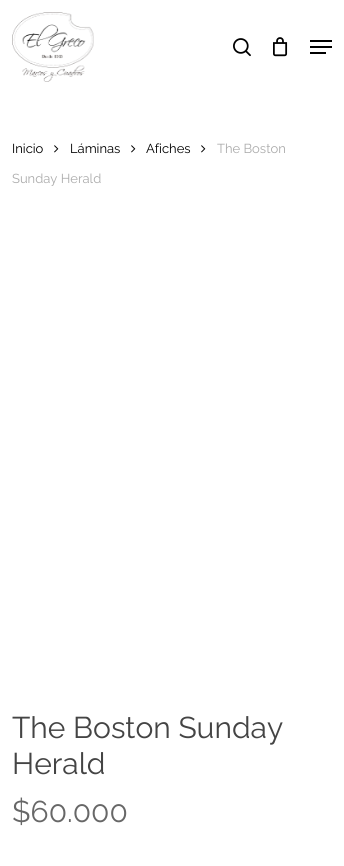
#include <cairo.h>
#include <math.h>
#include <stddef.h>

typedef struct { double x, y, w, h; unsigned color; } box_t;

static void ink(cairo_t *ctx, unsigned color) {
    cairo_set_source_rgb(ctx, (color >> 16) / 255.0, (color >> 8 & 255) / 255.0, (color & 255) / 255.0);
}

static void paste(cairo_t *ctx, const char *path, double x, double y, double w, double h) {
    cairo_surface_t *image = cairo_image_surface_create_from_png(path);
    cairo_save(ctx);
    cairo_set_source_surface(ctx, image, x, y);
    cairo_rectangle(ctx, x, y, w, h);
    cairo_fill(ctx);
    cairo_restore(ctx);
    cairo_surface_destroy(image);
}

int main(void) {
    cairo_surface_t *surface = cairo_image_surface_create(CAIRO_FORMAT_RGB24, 344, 866);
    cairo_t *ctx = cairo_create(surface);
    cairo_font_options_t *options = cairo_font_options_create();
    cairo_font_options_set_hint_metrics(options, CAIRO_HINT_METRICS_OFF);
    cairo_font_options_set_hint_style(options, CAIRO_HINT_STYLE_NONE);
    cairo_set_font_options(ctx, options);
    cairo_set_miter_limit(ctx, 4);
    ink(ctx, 0xFFFFFF);
    cairo_paint(ctx);
    paste(ctx, "media/1.png", 12, 12, 82, 70);
    paste(ctx, "media/2.png", 233, 38, 18, 19);
    paste(ctx, "media/3.png", 273, 37, 15, 20);
    {
        static const box_t items[] = {
            {310, 40, 22, 2, 0x000000},
            {310, 52, 16, 2, 0x000000},
            {310, 46, 22, 2, 0x000000},
        };
        for (size_t i = 0; i < sizeof items / sizeof *items; i++) {
            ink(ctx, items[i].color);
            cairo_rectangle(ctx, items[i].x, items[i].y, items[i].w, items[i].h);
            cairo_fill(ctx);
        }
    }
    cairo_select_font_face(ctx, "Raleway", CAIRO_FONT_SLANT_NORMAL, CAIRO_FONT_WEIGHT_NORMAL);
    cairo_set_font_size(ctx, 13);
    cairo_move_to(ctx, 12, 153);
    cairo_show_text(ctx, "Inicio");
    paste(ctx, "media/4.png", 54, 145, 5, 8);
    cairo_move_to(ctx, 70, 153);
    cairo_show_text(ctx, "Láminas");
    paste(ctx, "media/4.png", 131, 145, 5, 8);
    cairo_move_to(ctx, 146, 153);
    cairo_show_text(ctx, "Afiches");
    paste(ctx, "media/4.png", 201, 145, 5, 8);
    ink(ctx, 0xABABAB);
    cairo_move_to(ctx, 217, 153);
    cairo_show_text(ctx, "The Boston");
    cairo_move_to(ctx, 12, 183);
    cairo_show_text(ctx, "Sunday Herald");
    cairo_set_font_size(ctx, 30);
    ink(ctx, 0x444444);
    cairo_move_to(ctx, 12, 738);
    cairo_show_text(ctx, "The Boston Sunday");
    cairo_move_to(ctx, 12, 774);
    cairo_show_text(ctx, "Herald");
    ink(ctx, 0x676767);
    cairo_move_to(ctx, 12, 822);
    cairo_show_text(ctx, "$60.000");
    cairo_surface_write_to_png(surface, "image.png");
    cairo_font_options_destroy(options);
    cairo_destroy(ctx);
    cairo_surface_destroy(surface);
    return 0;
}
